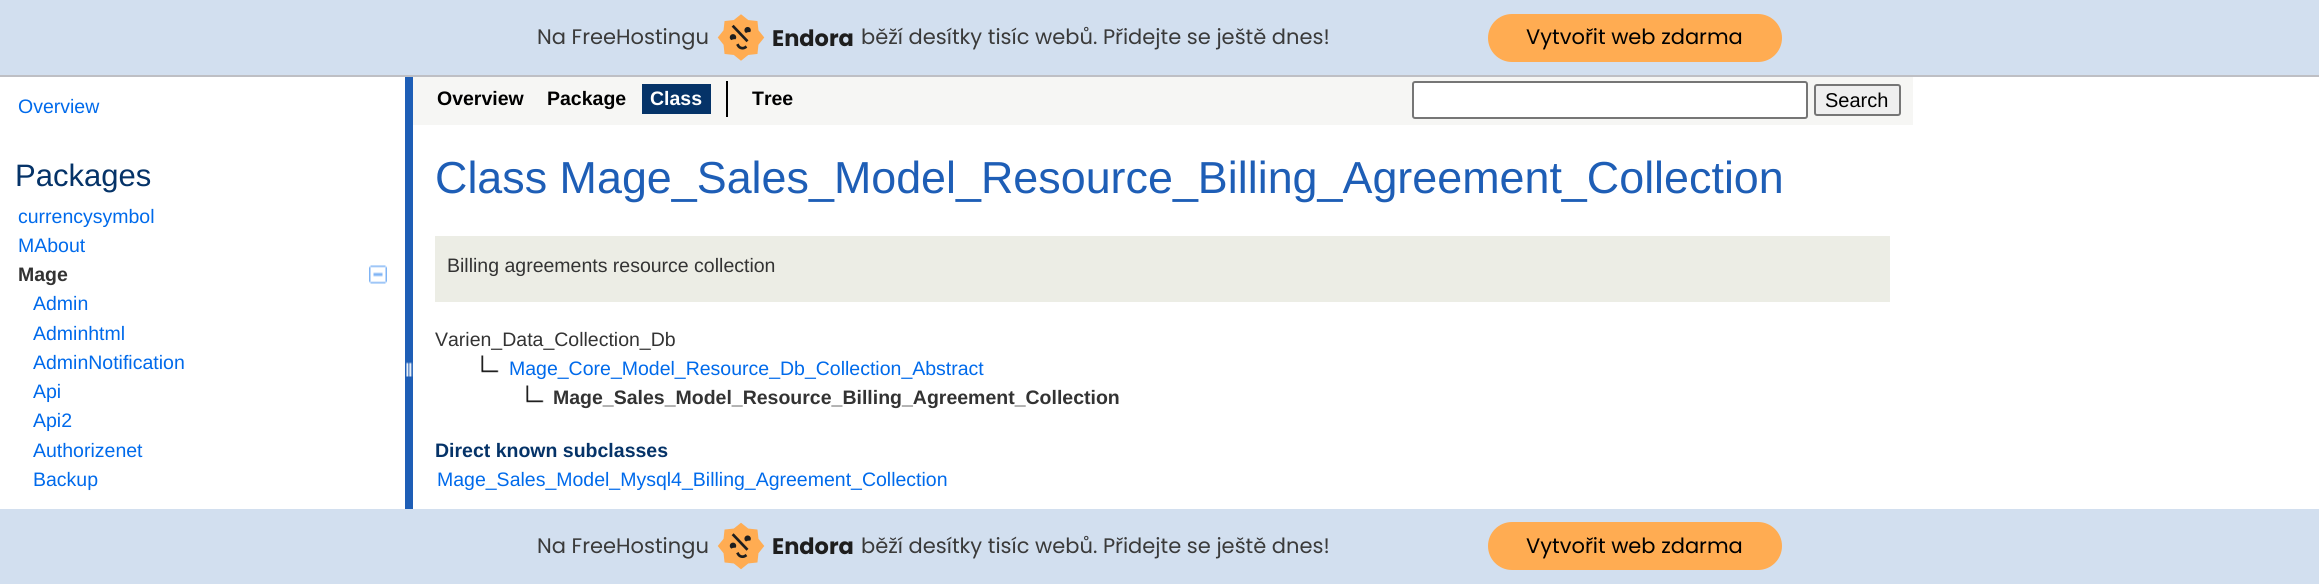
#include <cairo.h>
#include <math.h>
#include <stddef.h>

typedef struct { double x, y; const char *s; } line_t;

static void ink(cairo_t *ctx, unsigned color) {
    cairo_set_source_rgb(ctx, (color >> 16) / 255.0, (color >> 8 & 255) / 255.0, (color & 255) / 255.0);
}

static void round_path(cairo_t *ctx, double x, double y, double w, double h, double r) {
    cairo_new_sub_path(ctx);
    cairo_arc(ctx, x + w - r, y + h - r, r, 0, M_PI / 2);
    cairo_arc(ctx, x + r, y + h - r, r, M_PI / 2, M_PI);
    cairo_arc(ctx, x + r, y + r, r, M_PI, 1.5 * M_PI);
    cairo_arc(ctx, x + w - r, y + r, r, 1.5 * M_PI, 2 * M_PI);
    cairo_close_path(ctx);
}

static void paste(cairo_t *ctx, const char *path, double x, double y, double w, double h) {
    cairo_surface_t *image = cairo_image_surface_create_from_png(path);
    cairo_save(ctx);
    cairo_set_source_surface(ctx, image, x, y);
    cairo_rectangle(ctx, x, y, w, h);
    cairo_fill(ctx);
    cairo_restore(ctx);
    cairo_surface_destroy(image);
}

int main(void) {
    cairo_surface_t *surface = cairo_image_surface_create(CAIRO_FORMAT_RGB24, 2319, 584);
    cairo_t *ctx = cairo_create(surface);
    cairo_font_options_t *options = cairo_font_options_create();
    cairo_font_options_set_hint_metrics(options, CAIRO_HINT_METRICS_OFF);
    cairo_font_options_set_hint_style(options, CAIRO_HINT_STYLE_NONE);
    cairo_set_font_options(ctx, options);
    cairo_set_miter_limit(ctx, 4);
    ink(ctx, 0xFFFFFF);
    cairo_paint(ctx);
    ink(ctx, 0xD2DFEF);
    cairo_rectangle(ctx, 0, 0, 2319, 75);
    cairo_fill(ctx);
    ink(ctx, 0xBEBFC4);
    cairo_rectangle(ctx, 0, 75, 2319, 2);
    cairo_fill(ctx);
    cairo_select_font_face(ctx, "Poppins", CAIRO_FONT_SLANT_NORMAL, CAIRO_FONT_WEIGHT_NORMAL);
    cairo_set_font_size(ctx, 21);
    ink(ctx, 0x3A3A3A);
    cairo_move_to(ctx, 537, 44);
    cairo_show_text(ctx, "Na FreeHostingu");
    paste(ctx, "media/1.png", 717, 14, 48, 47);
    cairo_select_font_face(ctx, "Poppins", CAIRO_FONT_SLANT_NORMAL, CAIRO_FONT_WEIGHT_BOLD);
    cairo_set_font_size(ctx, 22.5);
    ink(ctx, 0x1E1E1E);
    cairo_move_to(ctx, 772, 46);
    cairo_show_text(ctx, "Endora");
    cairo_select_font_face(ctx, "Poppins", CAIRO_FONT_SLANT_NORMAL, CAIRO_FONT_WEIGHT_NORMAL);
    cairo_set_font_size(ctx, 21);
    ink(ctx, 0x3A3A3A);
    cairo_move_to(ctx, 861, 44);
    cairo_show_text(ctx, "běží desítky tisíc webů. Přidejte se ještě dnes!");
    ink(ctx, 0xFFAC52);
    round_path(ctx, 1488, 14, 294, 48, 24);
    cairo_fill(ctx);
    ink(ctx, 0x000000);
    cairo_move_to(ctx, 1526, 44);
    cairo_show_text(ctx, "Vytvořit web zdarma");
    cairo_select_font_face(ctx, "Liberation Sans", CAIRO_FONT_SLANT_NORMAL, CAIRO_FONT_WEIGHT_NORMAL);
    cairo_set_font_size(ctx, 19.5);
    ink(ctx, 0x006AEB);
    cairo_move_to(ctx, 18, 113);
    cairo_show_text(ctx, "Overview");
    cairo_set_font_size(ctx, 31);
    ink(ctx, 0x053368);
    cairo_move_to(ctx, 15, 186);
    cairo_show_text(ctx, "Packages");
    cairo_set_font_size(ctx, 19.5);
    ink(ctx, 0x006AEB);
    cairo_move_to(ctx, 18, 223);
    cairo_show_text(ctx, "currencysymbol");
    cairo_move_to(ctx, 18, 252);
    cairo_show_text(ctx, "MAbout");
    cairo_select_font_face(ctx, "Liberation Sans", CAIRO_FONT_SLANT_NORMAL, CAIRO_FONT_WEIGHT_BOLD);
    ink(ctx, 0x333333);
    cairo_move_to(ctx, 18, 281);
    cairo_show_text(ctx, "Mage");
    paste(ctx, "media/2.png", 369, 265, 18, 19);
    cairo_select_font_face(ctx, "Liberation Sans", CAIRO_FONT_SLANT_NORMAL, CAIRO_FONT_WEIGHT_NORMAL);
    ink(ctx, 0x006AEB);
    {
        static const line_t items[] = {
            {33, 310, "Admin"},
            {33, 340, "Adminhtml"},
            {33, 369, "AdminNotification"},
            {33, 398, "Api"},
            {33, 427, "Api2"},
            {33, 457, "Authorizenet"},
            {33, 486, "Backup"},
        };
        for (size_t i = 0; i < sizeof items / sizeof *items; i++) {
            cairo_move_to(ctx, items[i].x, items[i].y);
            cairo_show_text(ctx, items[i].s);
        }
    }
    ink(ctx, 0x1E5EB6);
    cairo_rectangle(ctx, 405, 77, 8, 432);
    cairo_fill(ctx);
    paste(ctx, "media/3.png", 406, 362, 7, 15);
    ink(ctx, 0xF6F6F4);
    cairo_rectangle(ctx, 413, 77, 1500, 48);
    cairo_fill(ctx);
    cairo_select_font_face(ctx, "Liberation Sans", CAIRO_FONT_SLANT_NORMAL, CAIRO_FONT_WEIGHT_BOLD);
    ink(ctx, 0x000000);
    cairo_move_to(ctx, 437, 105);
    cairo_show_text(ctx, "Overview");
    cairo_move_to(ctx, 547, 105);
    cairo_show_text(ctx, "Package");
    ink(ctx, 0x053368);
    cairo_rectangle(ctx, 642, 84, 69, 30);
    cairo_fill(ctx);
    ink(ctx, 0xFFFFFF);
    cairo_move_to(ctx, 650, 105);
    cairo_show_text(ctx, "Class");
    ink(ctx, 0x000000);
    cairo_rectangle(ctx, 726, 81, 2, 36);
    cairo_fill(ctx);
    cairo_move_to(ctx, 752, 105);
    cairo_show_text(ctx, "Tree");
    ink(ctx, 0xFFFFFF);
    round_path(ctx, 1413, 82, 394, 36, 2);
    cairo_fill_preserve(ctx);
    ink(ctx, 0x767676);
    cairo_stroke(ctx);
    ink(ctx, 0xEFEFEF);
    round_path(ctx, 1815, 85, 85, 30, 2);
    cairo_fill_preserve(ctx);
    ink(ctx, 0x767676);
    cairo_stroke(ctx);
    cairo_select_font_face(ctx, "Liberation Sans", CAIRO_FONT_SLANT_NORMAL, CAIRO_FONT_WEIGHT_NORMAL);
    cairo_set_font_size(ctx, 20);
    ink(ctx, 0x000000);
    cairo_move_to(ctx, 1825, 107);
    cairo_show_text(ctx, "Search");
    cairo_set_font_size(ctx, 44.85);
    ink(ctx, 0x1E5EB6);
    cairo_move_to(ctx, 435, 193);
    cairo_show_text(ctx, "Class Mage_Sales_Model_Resource_Billing_Agreement_Collection");
    ink(ctx, 0xECEDE5);
    cairo_rectangle(ctx, 435, 236, 1455, 66);
    cairo_fill(ctx);
    cairo_set_font_size(ctx, 19.5);
    ink(ctx, 0x333333);
    cairo_move_to(ctx, 447, 272);
    cairo_show_text(ctx, "Billing agreements resource collection");
    cairo_move_to(ctx, 435, 346);
    cairo_show_text(ctx, "Varien_Data_Collection_Db");
    paste(ctx, "media/4.png", 481, 355, 18, 18);
    ink(ctx, 0x006AEB);
    cairo_move_to(ctx, 509, 375);
    cairo_show_text(ctx, "Mage_Core_Model_Resource_Db_Collection_Abstract");
    paste(ctx, "media/4.png", 526, 385, 18, 18);
    cairo_select_font_face(ctx, "Liberation Sans", CAIRO_FONT_SLANT_NORMAL, CAIRO_FONT_WEIGHT_BOLD);
    ink(ctx, 0x333333);
    cairo_move_to(ctx, 553, 404);
    cairo_show_text(ctx, "Mage_Sales_Model_Resource_Billing_Agreement_Collection");
    ink(ctx, 0x053368);
    cairo_move_to(ctx, 435, 457);
    cairo_show_text(ctx, "Direct known subclasses");
    cairo_select_font_face(ctx, "Liberation Sans", CAIRO_FONT_SLANT_NORMAL, CAIRO_FONT_WEIGHT_NORMAL);
    ink(ctx, 0x006AEB);
    cairo_move_to(ctx, 437, 486);
    cairo_show_text(ctx, "Mage_Sales_Model_Mysql4_Billing_Agreement_Collection");
    ink(ctx, 0xD2DFEF);
    cairo_rectangle(ctx, 0, 509, 2319, 75);
    cairo_fill(ctx);
    cairo_select_font_face(ctx, "Poppins", CAIRO_FONT_SLANT_NORMAL, CAIRO_FONT_WEIGHT_NORMAL);
    cairo_set_font_size(ctx, 21);
    ink(ctx, 0x3A3A3A);
    cairo_move_to(ctx, 537, 553);
    cairo_show_text(ctx, "Na FreeHostingu");
    paste(ctx, "media/5.png", 717, 522, 48, 48);
    cairo_select_font_face(ctx, "Poppins", CAIRO_FONT_SLANT_NORMAL, CAIRO_FONT_WEIGHT_BOLD);
    cairo_set_font_size(ctx, 22.5);
    ink(ctx, 0x1E1E1E);
    cairo_move_to(ctx, 772, 554);
    cairo_show_text(ctx, "Endora");
    cairo_select_font_face(ctx, "Poppins", CAIRO_FONT_SLANT_NORMAL, CAIRO_FONT_WEIGHT_NORMAL);
    cairo_set_font_size(ctx, 21);
    ink(ctx, 0x3A3A3A);
    cairo_move_to(ctx, 861, 553);
    cairo_show_text(ctx, "běží desítky tisíc webů. Přidejte se ještě dnes!");
    ink(ctx, 0xFFAC52);
    round_path(ctx, 1488, 522, 294, 48, 24);
    cairo_fill(ctx);
    ink(ctx, 0x000000);
    cairo_move_to(ctx, 1526, 553);
    cairo_show_text(ctx, "Vytvořit web zdarma");
    cairo_surface_write_to_png(surface, "image.png");
    cairo_font_options_destroy(options);
    cairo_destroy(ctx);
    cairo_surface_destroy(surface);
    return 0;
}
